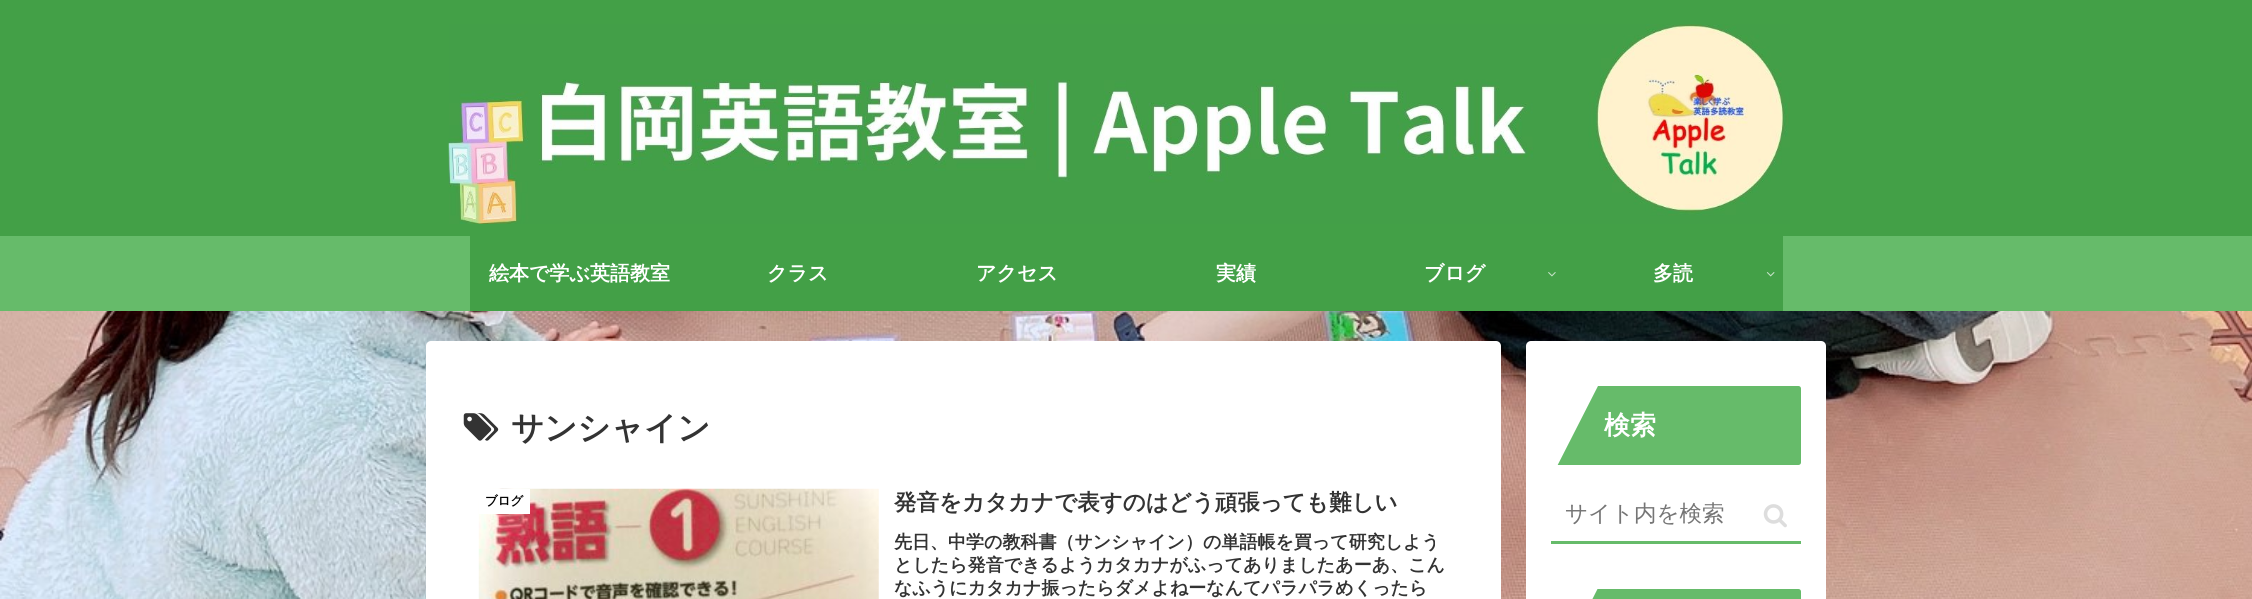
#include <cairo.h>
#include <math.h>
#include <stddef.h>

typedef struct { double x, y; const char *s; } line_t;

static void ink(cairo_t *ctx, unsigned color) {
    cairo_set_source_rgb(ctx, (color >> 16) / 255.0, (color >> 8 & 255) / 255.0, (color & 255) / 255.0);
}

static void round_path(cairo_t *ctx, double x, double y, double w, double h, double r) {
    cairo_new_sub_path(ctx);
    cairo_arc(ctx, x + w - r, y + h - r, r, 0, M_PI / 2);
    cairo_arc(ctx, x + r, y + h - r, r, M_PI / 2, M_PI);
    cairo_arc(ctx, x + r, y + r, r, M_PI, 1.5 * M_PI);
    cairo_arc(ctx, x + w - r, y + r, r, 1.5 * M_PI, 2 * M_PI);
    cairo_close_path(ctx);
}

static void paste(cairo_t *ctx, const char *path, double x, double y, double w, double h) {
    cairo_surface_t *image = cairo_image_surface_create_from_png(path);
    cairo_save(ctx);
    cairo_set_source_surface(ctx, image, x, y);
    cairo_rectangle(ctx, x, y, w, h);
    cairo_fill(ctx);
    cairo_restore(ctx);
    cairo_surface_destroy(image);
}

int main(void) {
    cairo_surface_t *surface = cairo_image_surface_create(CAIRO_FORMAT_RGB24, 2252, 599);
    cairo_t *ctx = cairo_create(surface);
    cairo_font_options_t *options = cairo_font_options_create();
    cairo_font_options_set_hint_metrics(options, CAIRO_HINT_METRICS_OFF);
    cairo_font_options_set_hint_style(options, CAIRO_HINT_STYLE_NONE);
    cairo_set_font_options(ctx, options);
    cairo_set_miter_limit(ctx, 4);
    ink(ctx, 0xFFFFFF);
    cairo_paint(ctx);
    paste(ctx, "media/1.png", 0, 311, 2252, 288);
    ink(ctx, 0x66BB6A);
    cairo_rectangle(ctx, 0, 236, 2252, 75);
    cairo_fill(ctx);
    ink(ctx, 0x43A047);
    cairo_rectangle(ctx, 0, 0, 2252, 236);
    cairo_fill(ctx);
    paste(ctx, "media/2.png", 448, 24, 1342, 200);
    cairo_rectangle(ctx, 470, 236, 1313, 75);
    cairo_fill(ctx);
    cairo_select_font_face(ctx, "WenQuanYi Zen Hei", CAIRO_FONT_SLANT_NORMAL, CAIRO_FONT_WEIGHT_BOLD);
    cairo_set_font_size(ctx, 20);
    ink(ctx, 0xFFFFFF);
    {
        static const line_t items[] = {
            {489, 280, "絵本で学ぶ英語教室"},
            {767, 280, "クラス"},
            {976, 280, "アクセス"},
            {1216, 280, "実績"},
            {1424, 280, "ブログ"},
        };
        for (size_t i = 0; i < sizeof items / sizeof *items; i++) {
            cairo_move_to(ctx, items[i].x, items[i].y);
            cairo_show_text(ctx, items[i].s);
        }
    }
    paste(ctx, "media/3.png", 1548, 272, 8, 5);
    cairo_move_to(ctx, 1653, 280);
    cairo_show_text(ctx, "多読");
    paste(ctx, "media/4.png", 1766, 272, 9, 5);
    round_path(ctx, 426, 341, 1075, 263, 5);
    cairo_fill(ctx);
    paste(ctx, "media/5.png", 463, 413, 36, 28);
    cairo_set_font_size(ctx, 32.5);
    ink(ctx, 0x333333);
    cairo_move_to(ctx, 511, 439);
    cairo_show_text(ctx, "サンシャイン");
    paste(ctx, "media/6.png", 478, 488, 401, 111);
    ink(ctx, 0xFFFFFF);
    cairo_rectangle(ctx, 479, 489, 51, 25);
    cairo_fill(ctx);
    cairo_set_font_size(ctx, 12.5);
    ink(ctx, 0x000000);
    cairo_move_to(ctx, 485, 505);
    cairo_show_text(ctx, "ブログ");
    cairo_set_font_size(ctx, 22.5);
    ink(ctx, 0x333333);
    cairo_move_to(ctx, 894, 510);
    cairo_show_text(ctx, "発音をカタカナで表すのはどう頑張っても難しい");
    cairo_set_font_size(ctx, 18);
    {
        static const line_t items[] = {
            {894, 548, "先日、中学の教科書（サンシャイン）の単語帳を買って研究しよう"},
            {894, 571, "としたら発音できるようカタカナがふってありましたあーあ、こん"},
            {894, 594, "なふうにカタカナ振ったらダメよねーなんてパラパラめくったら"},
        };
        for (size_t i = 0; i < sizeof items / sizeof *items; i++) {
            cairo_move_to(ctx, items[i].x, items[i].y);
            cairo_show_text(ctx, items[i].s);
        }
    }
    ink(ctx, 0xFFFFFF);
    round_path(ctx, 1526, 341, 300, 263, 5);
    cairo_fill(ctx);
    ink(ctx, 0x66BB6A);
    round_path(ctx, 1551, 386, 250, 79, 2.5);
    cairo_fill(ctx);
    ink(ctx, 0xFFFFFF);
    cairo_new_path(ctx);
    cairo_move_to(ctx, 1549, 482);
    cairo_line_to(ctx, 1549, 384);
    cairo_line_to(ctx, 1599, 384);
    cairo_close_path(ctx);
    cairo_fill(ctx);
    cairo_set_font_size(ctx, 26);
    cairo_move_to(ctx, 1604, 434);
    cairo_show_text(ctx, "検索");
    ink(ctx, 0x66BB6A);
    cairo_rectangle(ctx, 1551, 541, 250, 3);
    cairo_fill(ctx);
    cairo_select_font_face(ctx, "WenQuanYi Zen Hei Medium", CAIRO_FONT_SLANT_NORMAL, CAIRO_FONT_WEIGHT_NORMAL);
    cairo_set_font_size(ctx, 22.5);
    ink(ctx, 0x757575);
    cairo_move_to(ctx, 1565, 521);
    cairo_show_text(ctx, "サイト内を検索");
    paste(ctx, "media/7.png", 1763, 504, 24, 24);
    ink(ctx, 0x66BB6A);
    round_path(ctx, 1551, 589, 250, 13, 2.5);
    cairo_fill(ctx);
    ink(ctx, 0xFFFFFF);
    cairo_new_path(ctx);
    cairo_move_to(ctx, 1549, 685);
    cairo_line_to(ctx, 1549, 586);
    cairo_line_to(ctx, 1599, 586);
    cairo_close_path(ctx);
    cairo_fill(ctx);
    cairo_surface_write_to_png(surface, "image.png");
    cairo_font_options_destroy(options);
    cairo_destroy(ctx);
    cairo_surface_destroy(surface);
    return 0;
}
